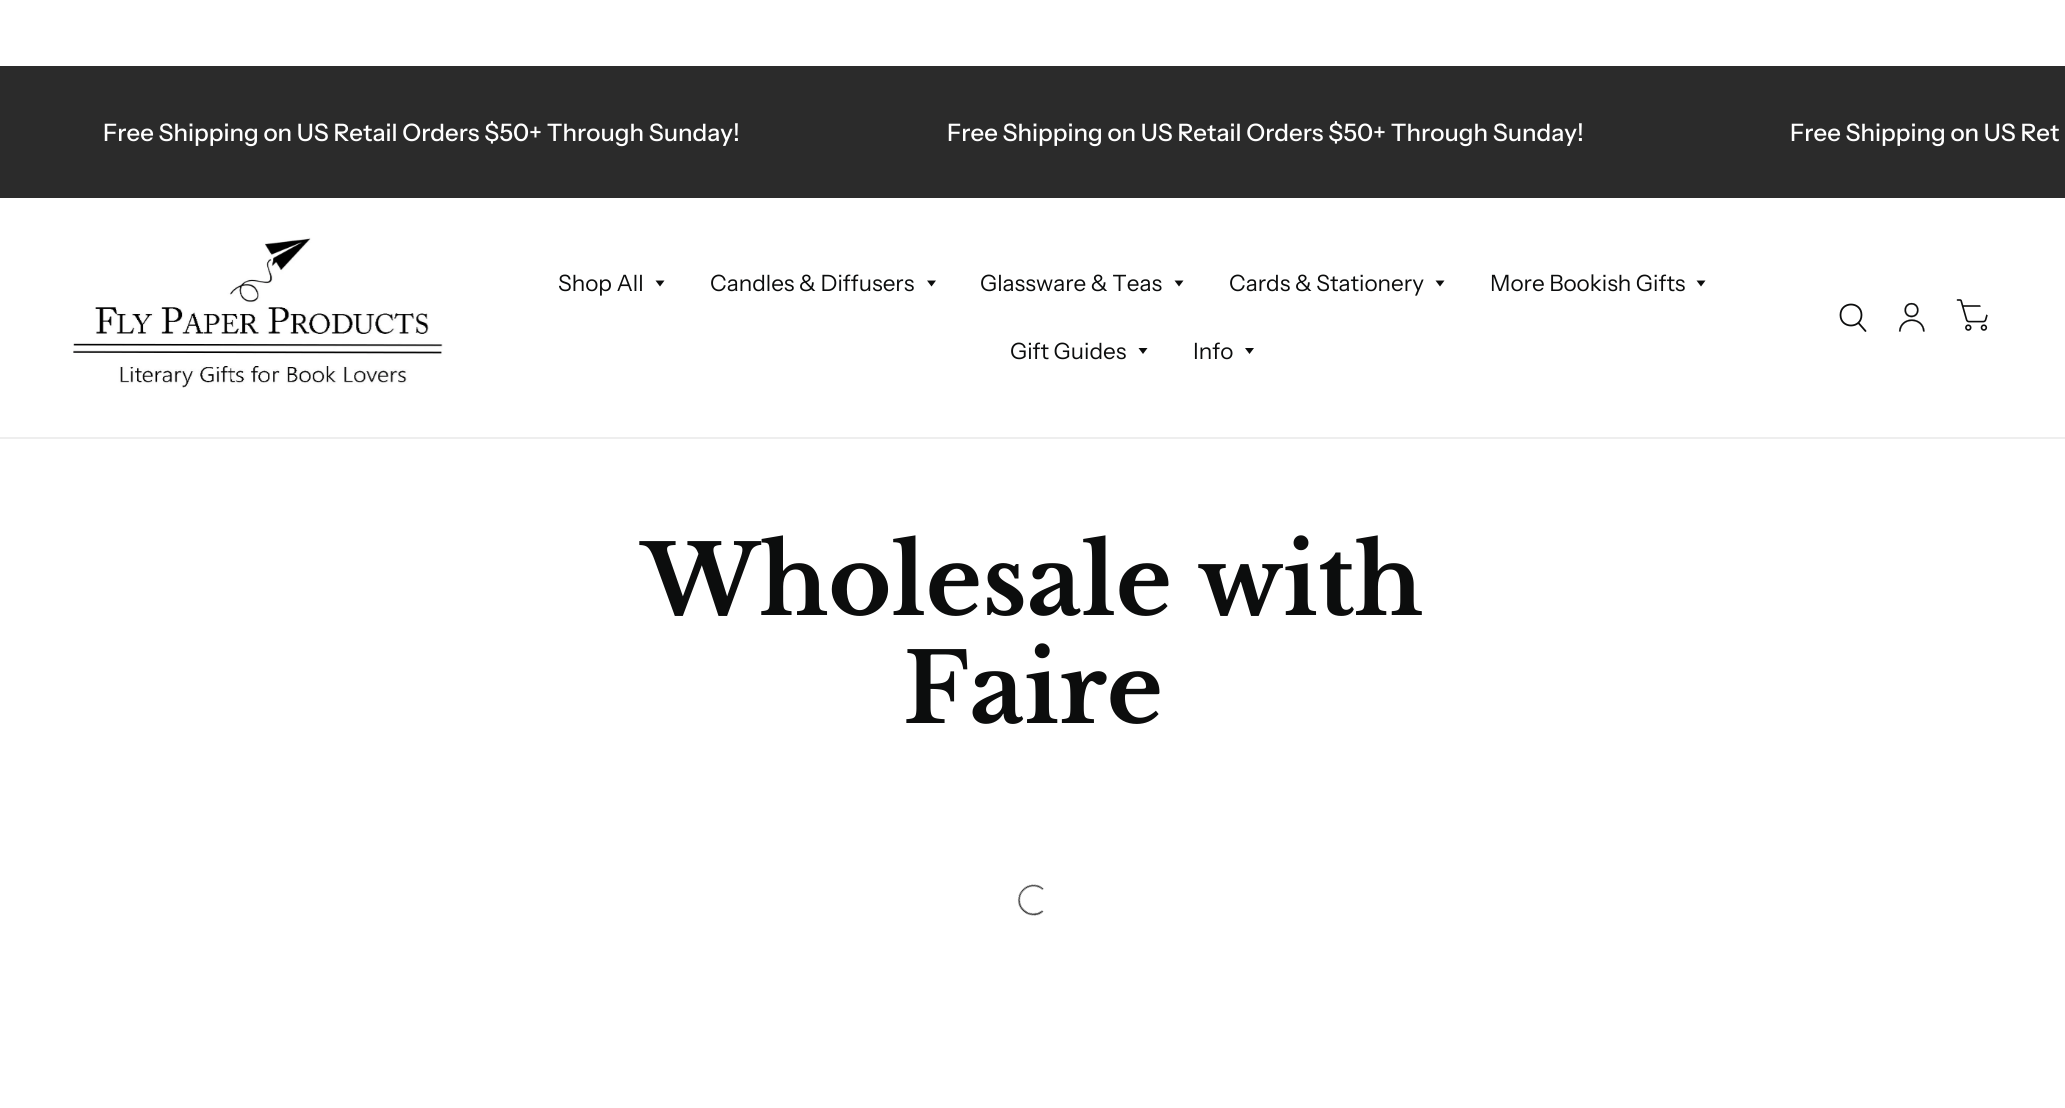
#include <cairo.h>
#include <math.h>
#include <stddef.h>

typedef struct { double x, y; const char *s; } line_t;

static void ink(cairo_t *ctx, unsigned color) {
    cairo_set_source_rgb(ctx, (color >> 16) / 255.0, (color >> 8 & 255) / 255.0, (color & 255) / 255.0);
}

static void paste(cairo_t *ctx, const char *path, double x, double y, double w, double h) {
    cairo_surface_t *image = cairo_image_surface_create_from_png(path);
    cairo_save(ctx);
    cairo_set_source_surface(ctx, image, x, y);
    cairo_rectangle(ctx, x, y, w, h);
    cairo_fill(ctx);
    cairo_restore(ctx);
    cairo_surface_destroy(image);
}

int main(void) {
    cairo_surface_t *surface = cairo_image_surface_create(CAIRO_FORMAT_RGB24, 2065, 1108);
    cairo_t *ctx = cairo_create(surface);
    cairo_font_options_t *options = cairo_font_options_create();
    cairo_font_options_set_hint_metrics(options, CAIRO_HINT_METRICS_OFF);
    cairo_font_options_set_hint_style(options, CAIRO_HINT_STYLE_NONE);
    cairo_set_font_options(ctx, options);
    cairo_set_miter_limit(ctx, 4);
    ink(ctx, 0xFFFFFF);
    cairo_paint(ctx);
    ink(ctx, 0x2B2B2B);
    cairo_rectangle(ctx, 0, 66, 2065, 132);
    cairo_fill(ctx);
    cairo_select_font_face(ctx, "Instrument Sans Medium", CAIRO_FONT_SLANT_NORMAL, CAIRO_FONT_WEIGHT_NORMAL);
    cairo_set_font_size(ctx, 24);
    ink(ctx, 0xFFFFFF);
    {
        static const line_t items[] = {
            {103, 141, "Free Shipping on US Retail Orders $50+ Through Sunday!"},
            {947, 141, "Free Shipping on US Retail Orders $50+ Through Sunday!"},
            {1790, 141, "Free Shipping on US Ret"},
        };
        for (size_t i = 0; i < sizeof items / sizeof *items; i++) {
            cairo_move_to(ctx, items[i].x, items[i].y);
            cairo_show_text(ctx, items[i].s);
        }
    }
    ink(ctx, 0xEEEEEE);
    cairo_rectangle(ctx, 0, 437, 2065, 2);
    cairo_fill(ctx);
    paste(ctx, "media/1.png", 73, 237, 370, 151);
    cairo_select_font_face(ctx, "Instrument Sans", CAIRO_FONT_SLANT_NORMAL, CAIRO_FONT_WEIGHT_NORMAL);
    cairo_set_font_size(ctx, 22.5);
    ink(ctx, 0x0C0D0D);
    cairo_move_to(ctx, 558, 291);
    cairo_show_text(ctx, "Shop All");
    cairo_new_path(ctx);
    cairo_move_to(ctx, 655.5, 280.5);
    cairo_line_to(ctx, 664.5, 280.5);
    cairo_line_to(ctx, 660, 286.5);
    cairo_close_path(ctx);
    cairo_fill(ctx);
    cairo_move_to(ctx, 710, 291);
    cairo_show_text(ctx, "Candles & Diffusers");
    cairo_new_path(ctx);
    cairo_move_to(ctx, 927, 280.5);
    cairo_line_to(ctx, 936, 280.5);
    cairo_line_to(ctx, 931.5, 286.5);
    cairo_close_path(ctx);
    cairo_fill(ctx);
    cairo_move_to(ctx, 980, 291);
    cairo_show_text(ctx, "Glassware & Teas");
    cairo_new_path(ctx);
    cairo_move_to(ctx, 1174.5, 280.5);
    cairo_line_to(ctx, 1183.5, 280.5);
    cairo_line_to(ctx, 1179, 286.5);
    cairo_close_path(ctx);
    cairo_fill(ctx);
    cairo_move_to(ctx, 1229, 291);
    cairo_show_text(ctx, "Cards & Stationery");
    cairo_new_path(ctx);
    cairo_move_to(ctx, 1435.5, 280.5);
    cairo_line_to(ctx, 1444.5, 280.5);
    cairo_line_to(ctx, 1440, 286.5);
    cairo_close_path(ctx);
    cairo_fill(ctx);
    cairo_move_to(ctx, 1490, 291);
    cairo_show_text(ctx, "More Bookish Gifts");
    cairo_new_path(ctx);
    cairo_move_to(ctx, 1696.5, 280.5);
    cairo_line_to(ctx, 1705.5, 280.5);
    cairo_line_to(ctx, 1701, 286.5);
    cairo_close_path(ctx);
    cairo_fill(ctx);
    cairo_move_to(ctx, 1010, 359);
    cairo_show_text(ctx, "Gift Guides");
    cairo_new_path(ctx);
    cairo_move_to(ctx, 1138.5, 348);
    cairo_line_to(ctx, 1147.5, 348);
    cairo_line_to(ctx, 1143, 354);
    cairo_close_path(ctx);
    cairo_fill(ctx);
    cairo_move_to(ctx, 1193, 359);
    cairo_show_text(ctx, "Info");
    cairo_new_path(ctx);
    cairo_move_to(ctx, 1245, 348);
    cairo_line_to(ctx, 1254, 348);
    cairo_line_to(ctx, 1249.5, 354);
    cairo_close_path(ctx);
    cairo_fill(ctx);
    cairo_new_path(ctx);
    cairo_move_to(ctx, 1858.5, 323);
    cairo_line_to(ctx, 1865.5, 331);
    cairo_move_to(ctx, 1861.5, 315);
    cairo_curve_to(ctx, 1861.5, 329, 1840.5, 329, 1840.5, 315);
    cairo_curve_to(ctx, 1840.5, 301, 1861.5, 301, 1861.5, 315);
    cairo_close_path(ctx);
    cairo_set_line_width(ctx, 1.8);
    cairo_set_line_cap(ctx, CAIRO_LINE_CAP_ROUND);
    cairo_set_line_join(ctx, CAIRO_LINE_JOIN_ROUND);
    cairo_stroke(ctx);
    paste(ctx, "media/2.png", 1898, 302, 27, 30);
    paste(ctx, "media/3.png", 1956, 299, 32, 32);
    ink(ctx, 0xFFFFFF);
    cairo_arc(ctx, 1994.5, 302.5, 14.5, 0, 2 * M_PI);
    cairo_fill(ctx);
    cairo_select_font_face(ctx, "Libre Baskerville", CAIRO_FONT_SLANT_NORMAL, CAIRO_FONT_WEIGHT_BOLD);
    cairo_set_font_size(ctx, 96);
    ink(ctx, 0x0C0D0D);
    cairo_move_to(ctx, 642, 615);
    cairo_show_text(ctx, "Wholesale with");
    cairo_move_to(ctx, 903, 723);
    cairo_show_text(ctx, "Faire");
    paste(ctx, "media/4.png", 1017, 884, 27, 32);
    cairo_surface_write_to_png(surface, "image.png");
    cairo_font_options_destroy(options);
    cairo_destroy(ctx);
    cairo_surface_destroy(surface);
    return 0;
}
